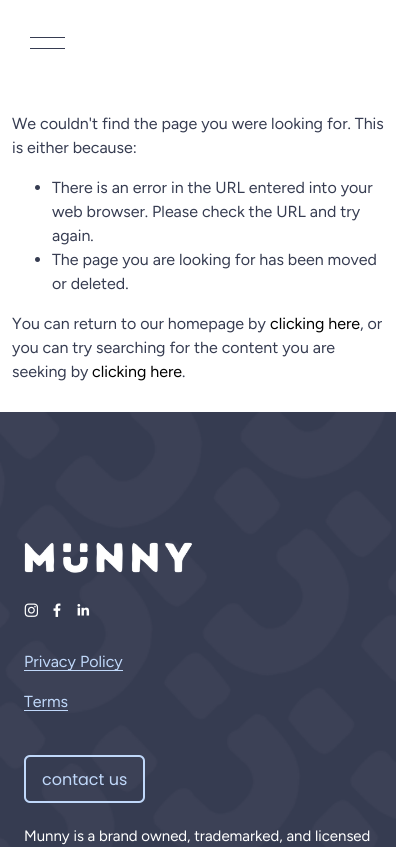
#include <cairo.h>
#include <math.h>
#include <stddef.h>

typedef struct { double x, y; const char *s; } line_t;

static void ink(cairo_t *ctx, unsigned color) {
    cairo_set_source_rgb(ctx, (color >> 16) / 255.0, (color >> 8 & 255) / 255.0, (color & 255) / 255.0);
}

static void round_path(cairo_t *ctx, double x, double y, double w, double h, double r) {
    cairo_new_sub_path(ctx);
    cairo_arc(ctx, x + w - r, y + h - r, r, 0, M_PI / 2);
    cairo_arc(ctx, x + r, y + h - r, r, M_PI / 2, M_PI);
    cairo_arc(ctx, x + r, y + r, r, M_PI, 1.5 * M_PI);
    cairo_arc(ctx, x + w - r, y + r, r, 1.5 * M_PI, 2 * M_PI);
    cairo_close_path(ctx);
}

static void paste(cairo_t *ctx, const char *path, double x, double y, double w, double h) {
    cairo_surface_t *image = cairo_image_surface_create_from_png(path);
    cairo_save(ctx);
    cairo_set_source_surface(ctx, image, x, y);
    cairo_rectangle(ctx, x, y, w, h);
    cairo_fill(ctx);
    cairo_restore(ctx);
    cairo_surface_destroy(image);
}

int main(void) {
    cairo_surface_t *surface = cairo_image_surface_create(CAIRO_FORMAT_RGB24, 396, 847);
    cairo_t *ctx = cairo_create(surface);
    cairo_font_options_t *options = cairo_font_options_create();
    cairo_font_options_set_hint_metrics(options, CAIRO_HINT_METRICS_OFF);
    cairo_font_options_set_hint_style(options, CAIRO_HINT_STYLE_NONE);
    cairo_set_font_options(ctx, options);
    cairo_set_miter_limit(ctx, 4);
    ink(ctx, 0xFFFFFF);
    cairo_paint(ctx);
    ink(ctx, 0x363C51);
    cairo_rectangle(ctx, 30, 37, 35, 1);
    cairo_fill(ctx);
    cairo_rectangle(ctx, 30, 48, 35, 1);
    cairo_fill(ctx);
    cairo_select_font_face(ctx, "Figtree", CAIRO_FONT_SLANT_NORMAL, CAIRO_FONT_WEIGHT_NORMAL);
    cairo_set_font_size(ctx, 16);
    cairo_move_to(ctx, 12, 129);
    cairo_show_text(ctx, "We couldn't find the page you were looking for. This");
    cairo_move_to(ctx, 12, 153);
    cairo_show_text(ctx, "is either because:");
    cairo_new_path(ctx);
    cairo_arc(ctx, 37.5, 187.5, 2.5, 0, 2 * M_PI);
    cairo_fill(ctx);
    {
        static const line_t items[] = {
            {52, 193, "There is an error in the URL entered into your"},
            {52, 217, "web browser. Please check the URL and try"},
            {52, 241, "again."},
        };
        for (size_t i = 0; i < sizeof items / sizeof *items; i++) {
            cairo_move_to(ctx, items[i].x, items[i].y);
            cairo_show_text(ctx, items[i].s);
        }
    }
    cairo_new_path(ctx);
    cairo_arc(ctx, 37.5, 259.5, 2.5, 0, 2 * M_PI);
    cairo_fill(ctx);
    {
        static const line_t items[] = {
            {52, 265, "The page you are looking for has been moved"},
            {52, 289, "or deleted."},
            {12, 329, "You can return to our homepage by"},
        };
        for (size_t i = 0; i < sizeof items / sizeof *items; i++) {
            cairo_move_to(ctx, items[i].x, items[i].y);
            cairo_show_text(ctx, items[i].s);
        }
    }
    ink(ctx, 0x000000);
    cairo_move_to(ctx, 270, 329);
    cairo_show_text(ctx, "clicking here");
    ink(ctx, 0x363C51);
    {
        static const line_t items[] = {
            {360, 329, ", or"},
            {12, 353, "you can try searching for the content you are"},
            {12, 377, "seeking by"},
        };
        for (size_t i = 0; i < sizeof items / sizeof *items; i++) {
            cairo_move_to(ctx, items[i].x, items[i].y);
            cairo_show_text(ctx, items[i].s);
        }
    }
    ink(ctx, 0x000000);
    cairo_move_to(ctx, 92, 377);
    cairo_show_text(ctx, "clicking here");
    ink(ctx, 0x363C51);
    cairo_move_to(ctx, 182, 377);
    cairo_show_text(ctx, ".");
    paste(ctx, "media/1.png", 0, 412, 396, 435);
    paste(ctx, "media/2.png", 24, 542, 169, 31);
    paste(ctx, "media/3.png", 24, 603, 14, 14);
    paste(ctx, "media/4.png", 53, 603, 8, 14);
    paste(ctx, "media/5.png", 77, 604, 13, 12);
    ink(ctx, 0xC0D8FA);
    cairo_rectangle(ctx, 24, 670, 99, 1);
    cairo_fill(ctx);
    cairo_move_to(ctx, 24, 667);
    cairo_show_text(ctx, "Privacy Policy");
    cairo_move_to(ctx, 24, 707);
    cairo_show_text(ctx, "Terms");
    cairo_rectangle(ctx, 24, 710, 44, 1);
    cairo_fill(ctx);
    round_path(ctx, 25, 756, 119, 46, 5);
    cairo_stroke(ctx);
    cairo_select_font_face(ctx, "Poppins", CAIRO_FONT_SLANT_NORMAL, CAIRO_FONT_WEIGHT_NORMAL);
    cairo_move_to(ctx, 42, 785);
    cairo_show_text(ctx, "contact us");
    cairo_select_font_face(ctx, "Figtree", CAIRO_FONT_SLANT_NORMAL, CAIRO_FONT_WEIGHT_NORMAL);
    cairo_set_font_size(ctx, 15);
    ink(ctx, 0xFFFFFF);
    cairo_move_to(ctx, 24, 841);
    cairo_show_text(ctx, "Munny is a brand owned, trademarked, and licensed");
    cairo_surface_write_to_png(surface, "image.png");
    cairo_font_options_destroy(options);
    cairo_destroy(ctx);
    cairo_surface_destroy(surface);
    return 0;
}
